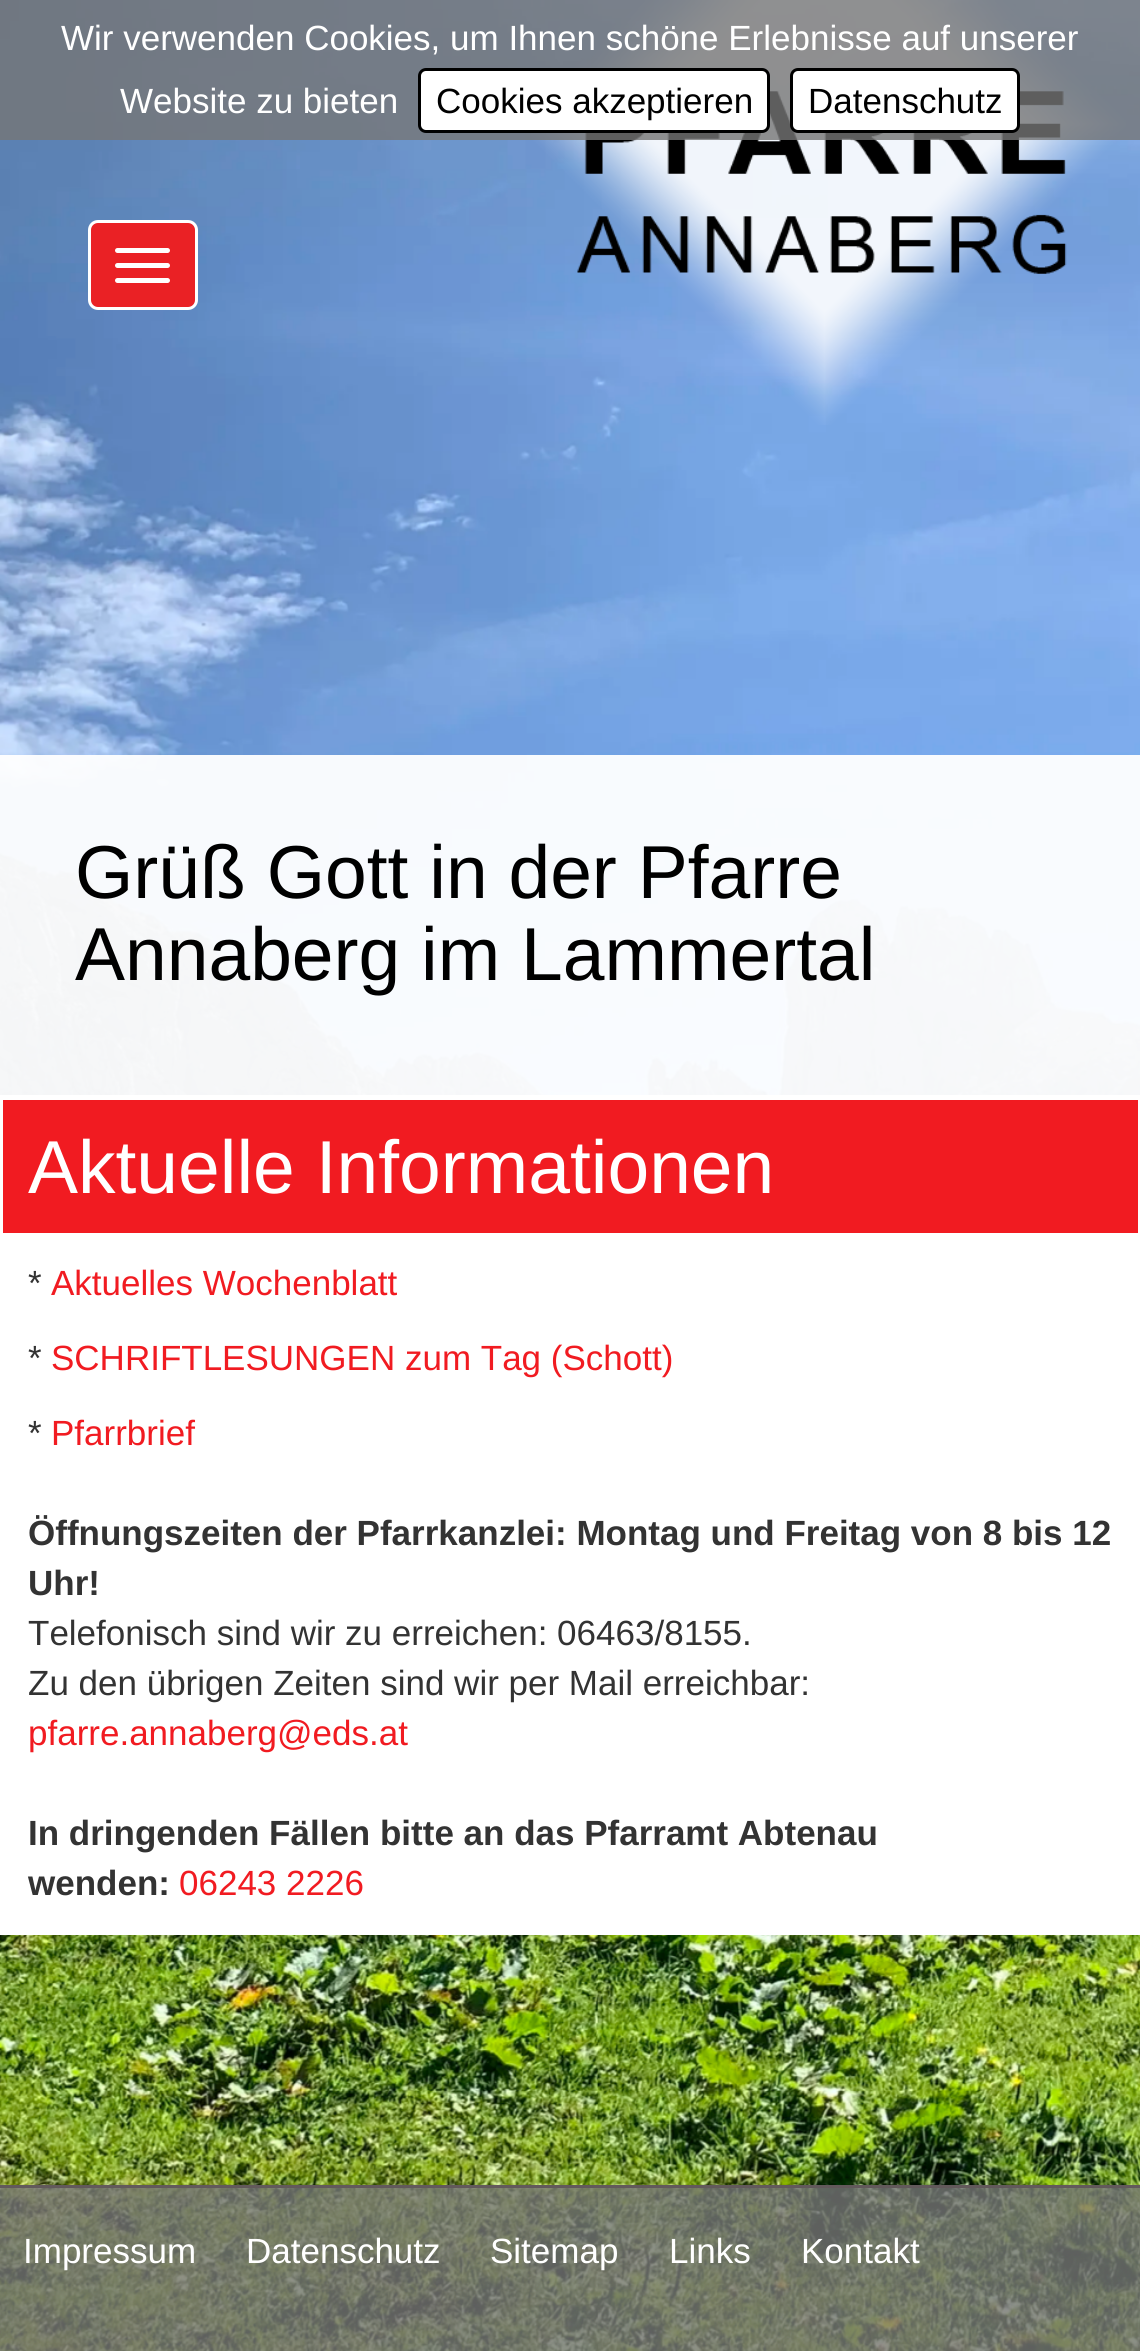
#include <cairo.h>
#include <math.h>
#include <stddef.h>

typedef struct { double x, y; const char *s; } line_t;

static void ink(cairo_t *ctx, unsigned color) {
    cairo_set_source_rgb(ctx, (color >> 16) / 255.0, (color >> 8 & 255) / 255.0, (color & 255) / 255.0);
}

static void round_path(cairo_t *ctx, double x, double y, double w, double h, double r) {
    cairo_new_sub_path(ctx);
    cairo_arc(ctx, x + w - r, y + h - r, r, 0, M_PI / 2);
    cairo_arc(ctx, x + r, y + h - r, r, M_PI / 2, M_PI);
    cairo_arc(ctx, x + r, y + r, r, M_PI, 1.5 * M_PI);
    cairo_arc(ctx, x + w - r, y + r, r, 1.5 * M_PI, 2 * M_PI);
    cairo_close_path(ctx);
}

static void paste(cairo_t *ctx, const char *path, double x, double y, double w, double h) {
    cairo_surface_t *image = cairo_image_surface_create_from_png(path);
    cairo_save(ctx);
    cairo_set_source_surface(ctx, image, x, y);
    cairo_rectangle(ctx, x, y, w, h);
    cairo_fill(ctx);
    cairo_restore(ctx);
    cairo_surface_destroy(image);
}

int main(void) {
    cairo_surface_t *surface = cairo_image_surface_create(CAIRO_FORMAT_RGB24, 1140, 2351);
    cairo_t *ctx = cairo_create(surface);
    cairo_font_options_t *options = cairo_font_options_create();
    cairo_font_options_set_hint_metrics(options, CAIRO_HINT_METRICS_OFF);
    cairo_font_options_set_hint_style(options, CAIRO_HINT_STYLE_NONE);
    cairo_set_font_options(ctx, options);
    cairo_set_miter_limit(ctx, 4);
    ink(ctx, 0xFFFFFF);
    cairo_paint(ctx);
    paste(ctx, "media/1.png", 0, 0, 1140, 2351);
    ink(ctx, 0xEA2125);
    round_path(ctx, 89.5, 221.5, 107, 87, 8.5);
    cairo_fill_preserve(ctx);
    ink(ctx, 0xFFFFFF);
    cairo_set_line_width(ctx, 3);
    cairo_stroke(ctx);
    round_path(ctx, 115, 248, 55, 5, 2.5);
    cairo_fill(ctx);
    round_path(ctx, 115, 263, 55, 5, 2.5);
    cairo_fill(ctx);
    round_path(ctx, 115, 278, 55, 5, 2.5);
    cairo_fill(ctx);
    paste(ctx, "media/2.png", 531, 0, 595, 425);
    paste(ctx, "media/3.png", 577, 91, 490, 183);
    cairo_set_source_rgba(ctx, 0.459, 0.459, 0.459, 0.8);
    cairo_rectangle(ctx, 0, 0, 1140, 140);
    cairo_fill(ctx);
    cairo_select_font_face(ctx, "Liberation Sans", CAIRO_FONT_SLANT_NORMAL, CAIRO_FONT_WEIGHT_NORMAL);
    cairo_set_font_size(ctx, 35);
    ink(ctx, 0xFFFFFF);
    cairo_move_to(ctx, 61, 50);
    cairo_show_text(ctx, "Wir verwenden Cookies, um Ihnen schöne Erlebnisse auf unserer");
    cairo_move_to(ctx, 120, 113);
    cairo_show_text(ctx, "Website zu bieten");
    round_path(ctx, 419.5, 69.5, 349, 62, 6.5);
    cairo_fill_preserve(ctx);
    ink(ctx, 0x000000);
    cairo_stroke(ctx);
    cairo_move_to(ctx, 436, 113);
    cairo_show_text(ctx, "Cookies akzeptieren");
    ink(ctx, 0xFFFFFF);
    round_path(ctx, 791.5, 69.5, 227, 62, 6.5);
    cairo_fill_preserve(ctx);
    ink(ctx, 0x000000);
    cairo_stroke(ctx);
    cairo_move_to(ctx, 808, 113);
    cairo_show_text(ctx, "Datenschutz");
    cairo_set_source_rgba(ctx, 1, 1, 1, 0.95);
    cairo_rectangle(ctx, 0, 755, 1140, 340);
    cairo_fill(ctx);
    cairo_set_font_size(ctx, 75);
    ink(ctx, 0x000000);
    cairo_move_to(ctx, 75, 898);
    cairo_show_text(ctx, "Grüß Gott in der Pfarre");
    cairo_move_to(ctx, 75, 980);
    cairo_show_text(ctx, "Annaberg im Lammertal");
    ink(ctx, 0xFFFFFF);
    cairo_rectangle(ctx, 0, 1095, 1140, 840);
    cairo_fill(ctx);
    ink(ctx, 0xF11B21);
    cairo_rectangle(ctx, 3, 1100, 1135, 133);
    cairo_fill(ctx);
    ink(ctx, 0xFFFFFF);
    cairo_move_to(ctx, 28, 1193);
    cairo_show_text(ctx, "Aktuelle Informationen");
    cairo_set_font_size(ctx, 35);
    ink(ctx, 0x333333);
    cairo_move_to(ctx, 28, 1295);
    cairo_show_text(ctx, "*");
    ink(ctx, 0xF11B21);
    cairo_move_to(ctx, 51, 1295);
    cairo_show_text(ctx, "Aktuelles Wochenblatt");
    ink(ctx, 0x333333);
    cairo_move_to(ctx, 28, 1370);
    cairo_show_text(ctx, "*");
    ink(ctx, 0xF11B21);
    cairo_move_to(ctx, 51, 1370);
    cairo_show_text(ctx, "SCHRIFTLESUNGEN zum Tag (Schott)");
    ink(ctx, 0x333333);
    cairo_move_to(ctx, 28, 1445);
    cairo_show_text(ctx, "*");
    ink(ctx, 0xF11B21);
    cairo_move_to(ctx, 51, 1445);
    cairo_show_text(ctx, "Pfarrbrief");
    cairo_select_font_face(ctx, "Liberation Sans", CAIRO_FONT_SLANT_NORMAL, CAIRO_FONT_WEIGHT_BOLD);
    ink(ctx, 0x333333);
    cairo_move_to(ctx, 28, 1545);
    cairo_show_text(ctx, "Öffnungszeiten der Pfarrkanzlei: Montag und Freitag von 8 bis 12");
    cairo_move_to(ctx, 28, 1595);
    cairo_show_text(ctx, "Uhr!");
    cairo_select_font_face(ctx, "Liberation Sans", CAIRO_FONT_SLANT_NORMAL, CAIRO_FONT_WEIGHT_NORMAL);
    cairo_move_to(ctx, 28, 1645);
    cairo_show_text(ctx, "Telefonisch sind wir zu erreichen: 06463/8155.");
    cairo_move_to(ctx, 28, 1695);
    cairo_show_text(ctx, "Zu den übrigen Zeiten sind wir per Mail erreichbar:");
    ink(ctx, 0xF11B21);
    cairo_move_to(ctx, 28, 1745);
    cairo_show_text(ctx, "pfarre.annaberg@eds.at");
    cairo_select_font_face(ctx, "Liberation Sans", CAIRO_FONT_SLANT_NORMAL, CAIRO_FONT_WEIGHT_BOLD);
    ink(ctx, 0x333333);
    cairo_move_to(ctx, 28, 1845);
    cairo_show_text(ctx, "In dringenden Fällen bitte an das Pfarramt Abtenau");
    cairo_move_to(ctx, 28, 1895);
    cairo_show_text(ctx, "wenden:");
    cairo_select_font_face(ctx, "Liberation Sans", CAIRO_FONT_SLANT_NORMAL, CAIRO_FONT_WEIGHT_NORMAL);
    ink(ctx, 0xF11B21);
    cairo_move_to(ctx, 179, 1895);
    cairo_show_text(ctx, "06243 2226");
    cairo_set_source_rgba(ctx, 0.459, 0.459, 0.459, 0.8);
    cairo_rectangle(ctx, 0, 2188, 1140, 163);
    cairo_fill(ctx);
    ink(ctx, 0x62595B);
    cairo_rectangle(ctx, 0, 2185, 1140, 3);
    cairo_fill(ctx);
    ink(ctx, 0xFFFFFF);
    {
        static const line_t items[] = {
            {23, 2263, "Impressum"},
            {246, 2263, "Datenschutz"},
            {490, 2263, "Sitemap"},
            {669, 2263, "Links"},
            {801, 2263, "Kontakt"},
        };
        for (size_t i = 0; i < sizeof items / sizeof *items; i++) {
            cairo_move_to(ctx, items[i].x, items[i].y);
            cairo_show_text(ctx, items[i].s);
        }
    }
    cairo_surface_write_to_png(surface, "image.png");
    cairo_font_options_destroy(options);
    cairo_destroy(ctx);
    cairo_surface_destroy(surface);
    return 0;
}
